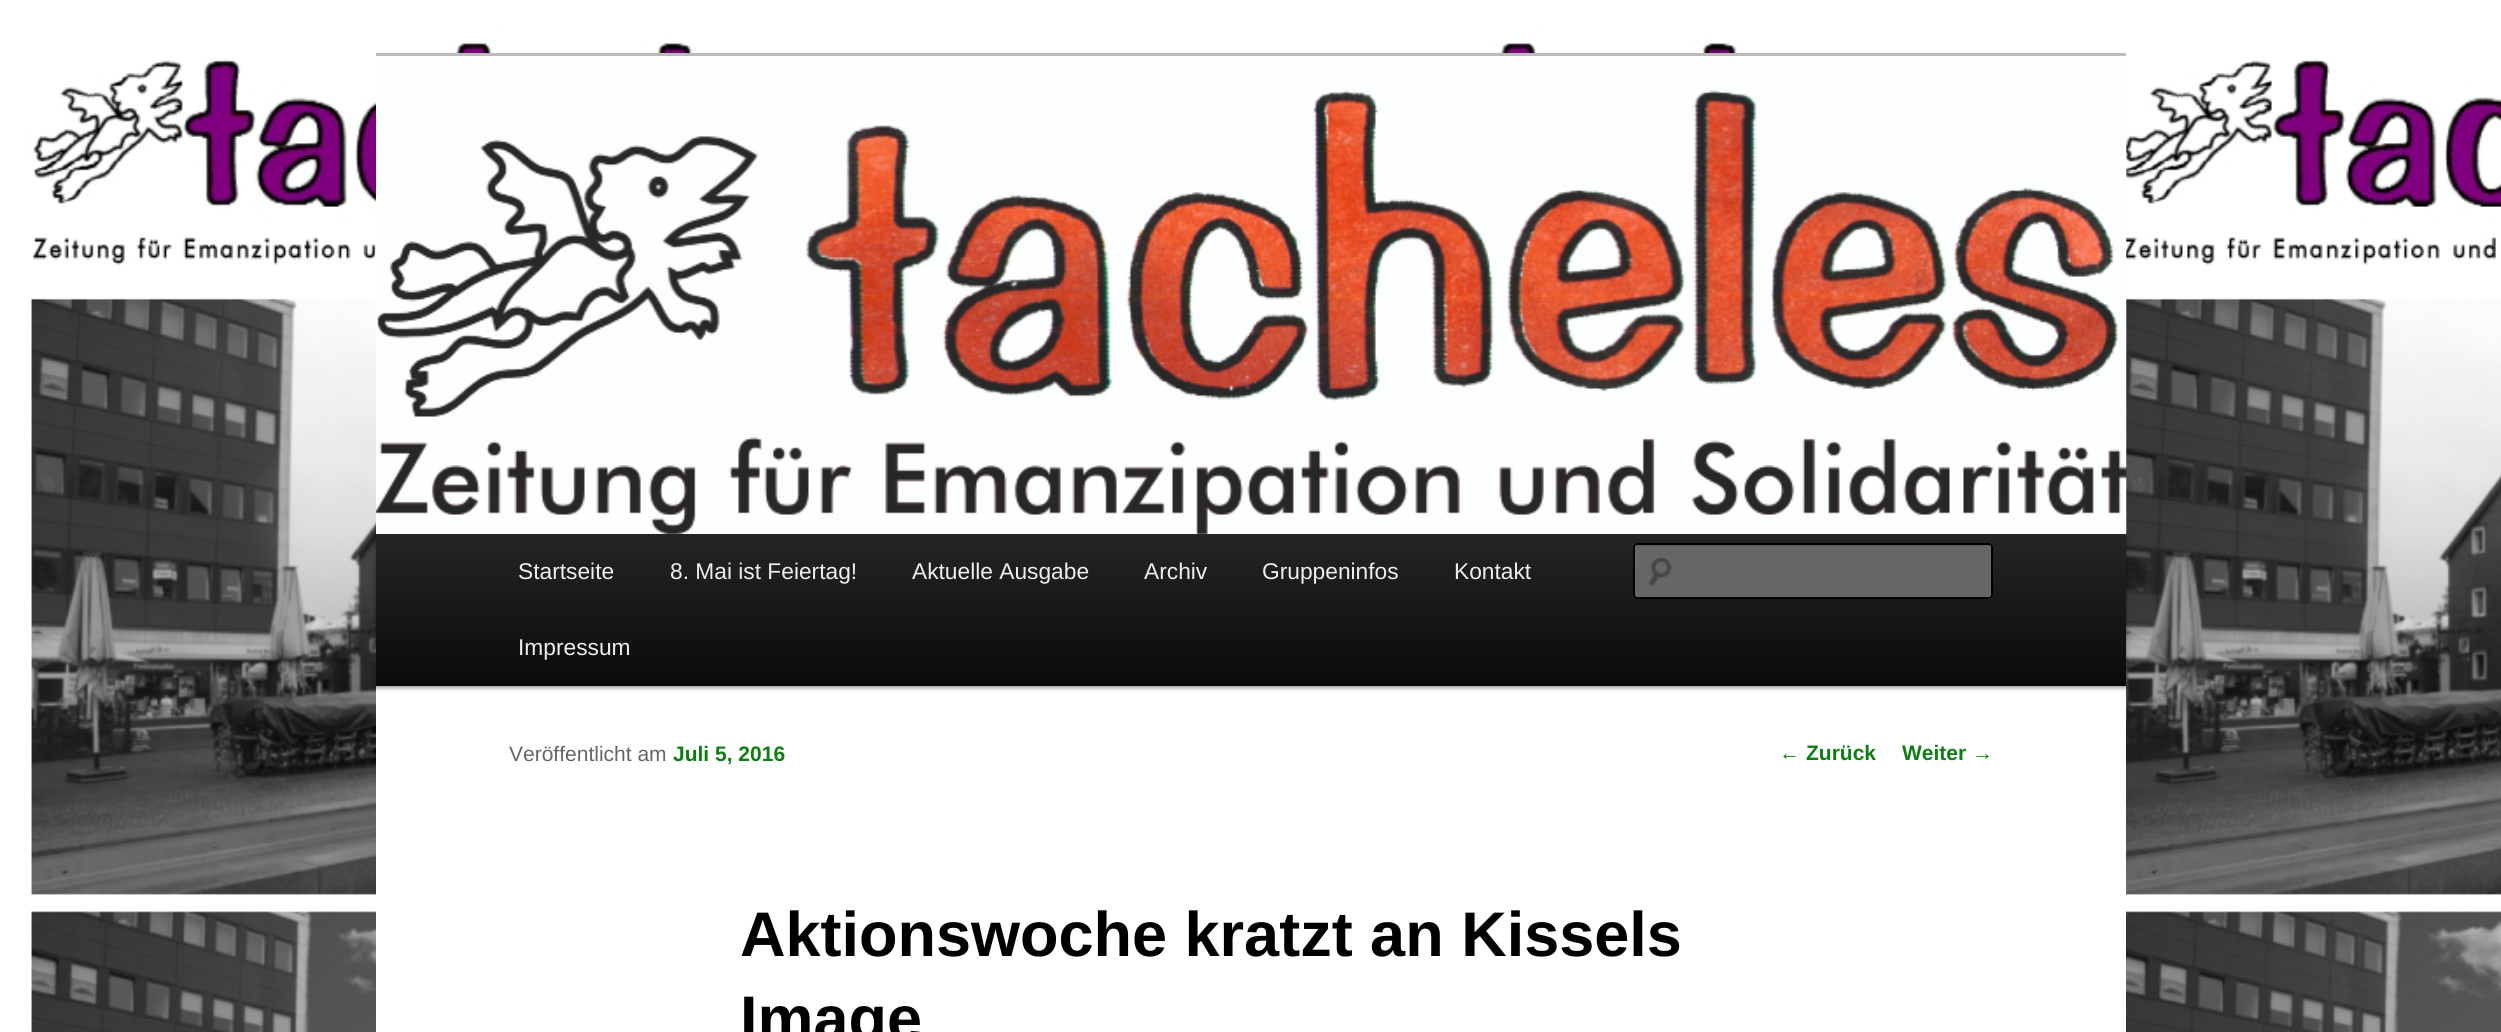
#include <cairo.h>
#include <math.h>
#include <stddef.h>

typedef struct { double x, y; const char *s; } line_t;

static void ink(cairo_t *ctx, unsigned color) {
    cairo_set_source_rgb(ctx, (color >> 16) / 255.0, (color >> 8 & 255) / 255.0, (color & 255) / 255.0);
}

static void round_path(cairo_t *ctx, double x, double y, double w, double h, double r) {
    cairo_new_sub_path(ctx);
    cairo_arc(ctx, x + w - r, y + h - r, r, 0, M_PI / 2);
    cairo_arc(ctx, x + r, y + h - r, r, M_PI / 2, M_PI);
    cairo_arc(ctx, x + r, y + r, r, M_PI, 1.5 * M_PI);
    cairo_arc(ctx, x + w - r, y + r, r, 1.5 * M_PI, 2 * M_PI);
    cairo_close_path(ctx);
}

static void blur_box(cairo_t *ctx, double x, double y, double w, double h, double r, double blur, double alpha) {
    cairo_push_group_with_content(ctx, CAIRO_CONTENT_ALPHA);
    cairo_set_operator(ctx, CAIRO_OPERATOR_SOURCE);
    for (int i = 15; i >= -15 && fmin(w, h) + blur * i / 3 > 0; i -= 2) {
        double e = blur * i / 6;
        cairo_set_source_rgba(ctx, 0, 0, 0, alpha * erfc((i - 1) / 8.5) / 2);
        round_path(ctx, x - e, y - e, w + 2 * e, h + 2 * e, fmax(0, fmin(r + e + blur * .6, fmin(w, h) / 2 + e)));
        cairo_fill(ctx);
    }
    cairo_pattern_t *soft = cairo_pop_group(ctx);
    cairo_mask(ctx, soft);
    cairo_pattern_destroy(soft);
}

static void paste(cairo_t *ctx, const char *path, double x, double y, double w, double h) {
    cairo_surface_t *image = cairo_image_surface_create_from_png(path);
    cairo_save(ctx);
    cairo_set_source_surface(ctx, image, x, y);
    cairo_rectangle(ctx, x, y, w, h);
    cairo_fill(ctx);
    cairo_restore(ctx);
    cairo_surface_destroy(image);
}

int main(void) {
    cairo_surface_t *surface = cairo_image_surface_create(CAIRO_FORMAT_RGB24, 2501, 1032);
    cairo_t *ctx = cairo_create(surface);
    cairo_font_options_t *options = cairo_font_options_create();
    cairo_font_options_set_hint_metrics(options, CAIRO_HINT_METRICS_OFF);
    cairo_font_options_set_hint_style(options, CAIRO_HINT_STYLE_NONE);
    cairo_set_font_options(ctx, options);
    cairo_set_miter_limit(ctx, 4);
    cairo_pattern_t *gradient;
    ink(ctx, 0xFFFFFF);
    cairo_paint(ctx);
    paste(ctx, "media/1.png", 0, 0, 2501, 1032);
    ink(ctx, 0xFFFFFF);
    cairo_rectangle(ctx, 376, 57, 1750, 975);
    cairo_fill(ctx);
    ink(ctx, 0xBBBBBB);
    cairo_rectangle(ctx, 376, 53, 1750, 4);
    cairo_fill(ctx);
    ink(ctx, 0x000000);
    blur_box(ctx, 376, 536, 1750, 152, 0, 2, 0.4);
    paste(ctx, "media/2.png", 376, 56, 1751, 478);
    gradient = cairo_pattern_create_linear(1251, 534, 1251, 686);
    cairo_pattern_add_color_stop_rgba(gradient, 0, 0.145, 0.145, 0.145, 1);
    cairo_pattern_add_color_stop_rgba(gradient, 1, 0.039, 0.039, 0.039, 1);
    cairo_set_source(ctx, gradient);
    cairo_pattern_destroy(gradient);
    cairo_rectangle(ctx, 376, 534, 1750, 152);
    cairo_fill(ctx);
    cairo_select_font_face(ctx, "Liberation Sans", CAIRO_FONT_SLANT_NORMAL, CAIRO_FONT_WEIGHT_NORMAL);
    cairo_set_font_size(ctx, 22.75);
    ink(ctx, 0xEEEEEE);
    {
        static const line_t items[] = {
            {518, 579, "Startseite"},
            {670, 579, "8. Mai ist Feiertag!"},
            {912, 579, "Aktuelle Ausgabe"},
            {1144, 579, "Archiv"},
            {1262, 579, "Gruppeninfos"},
            {1454, 579, "Kontakt"},
            {518, 655, "Impressum"},
        };
        for (size_t i = 0; i < sizeof items / sizeof *items; i++) {
            cairo_move_to(ctx, items[i].x, items[i].y);
            cairo_show_text(ctx, items[i].s);
        }
    }
    ink(ctx, 0x666666);
    round_path(ctx, 1633, 543, 360, 56, 4);
    cairo_fill(ctx);
    paste(ctx, "media/3.png", 1648, 557, 24, 30);
    ink(ctx, 0x5C5C5C);
    cairo_new_path(ctx);
    cairo_move_to(ctx, 1636, 546);
    cairo_line_to(ctx, 1990, 546);
    cairo_curve_to(ctx, 1991, 546, 1992, 547, 1992, 548);
    cairo_line_to(ctx, 1992, 546);
    cairo_curve_to(ctx, 1992, 545, 1991, 544, 1990, 544);
    cairo_line_to(ctx, 1637, 544);
    cairo_curve_to(ctx, 1636, 544, 1635, 545, 1635, 546);
    cairo_close_path(ctx);
    cairo_fill(ctx);
    round_path(ctx, 1634, 544, 358, 54, 3);
    ink(ctx, 0x000000);
    cairo_stroke(ctx);
    cairo_set_font_size(ctx, 21);
    ink(ctx, 0x666666);
    cairo_move_to(ctx, 509, 761);
    cairo_show_text(ctx, "Veröffentlicht am");
    cairo_select_font_face(ctx, "Liberation Sans", CAIRO_FONT_SLANT_NORMAL, CAIRO_FONT_WEIGHT_BOLD);
    ink(ctx, 0x0E7E13);
    cairo_move_to(ctx, 673, 761);
    cairo_show_text(ctx, "Juli 5, 2016");
    cairo_set_font_size(ctx, 63);
    ink(ctx, 0x000000);
    cairo_move_to(ctx, 740, 956);
    cairo_show_text(ctx, "Aktionswoche kratzt an Kissels");
    cairo_move_to(ctx, 740, 1040);
    cairo_show_text(ctx, "Image");
    cairo_select_font_face(ctx, "Liberation Sans", CAIRO_FONT_SLANT_NORMAL, CAIRO_FONT_WEIGHT_NORMAL);
    cairo_set_font_size(ctx, 21);
    ink(ctx, 0x0E7E13);
    cairo_move_to(ctx, 1779, 760);
    cairo_show_text(ctx, "←");
    cairo_select_font_face(ctx, "Liberation Sans", CAIRO_FONT_SLANT_NORMAL, CAIRO_FONT_WEIGHT_BOLD);
    cairo_move_to(ctx, 1806, 760);
    cairo_show_text(ctx, "Zurück");
    cairo_move_to(ctx, 1902, 760);
    cairo_show_text(ctx, "Weiter");
    cairo_select_font_face(ctx, "Liberation Sans", CAIRO_FONT_SLANT_NORMAL, CAIRO_FONT_WEIGHT_NORMAL);
    cairo_move_to(ctx, 1972, 760);
    cairo_show_text(ctx, "→");
    cairo_surface_write_to_png(surface, "image.png");
    cairo_font_options_destroy(options);
    cairo_destroy(ctx);
    cairo_surface_destroy(surface);
    return 0;
}
